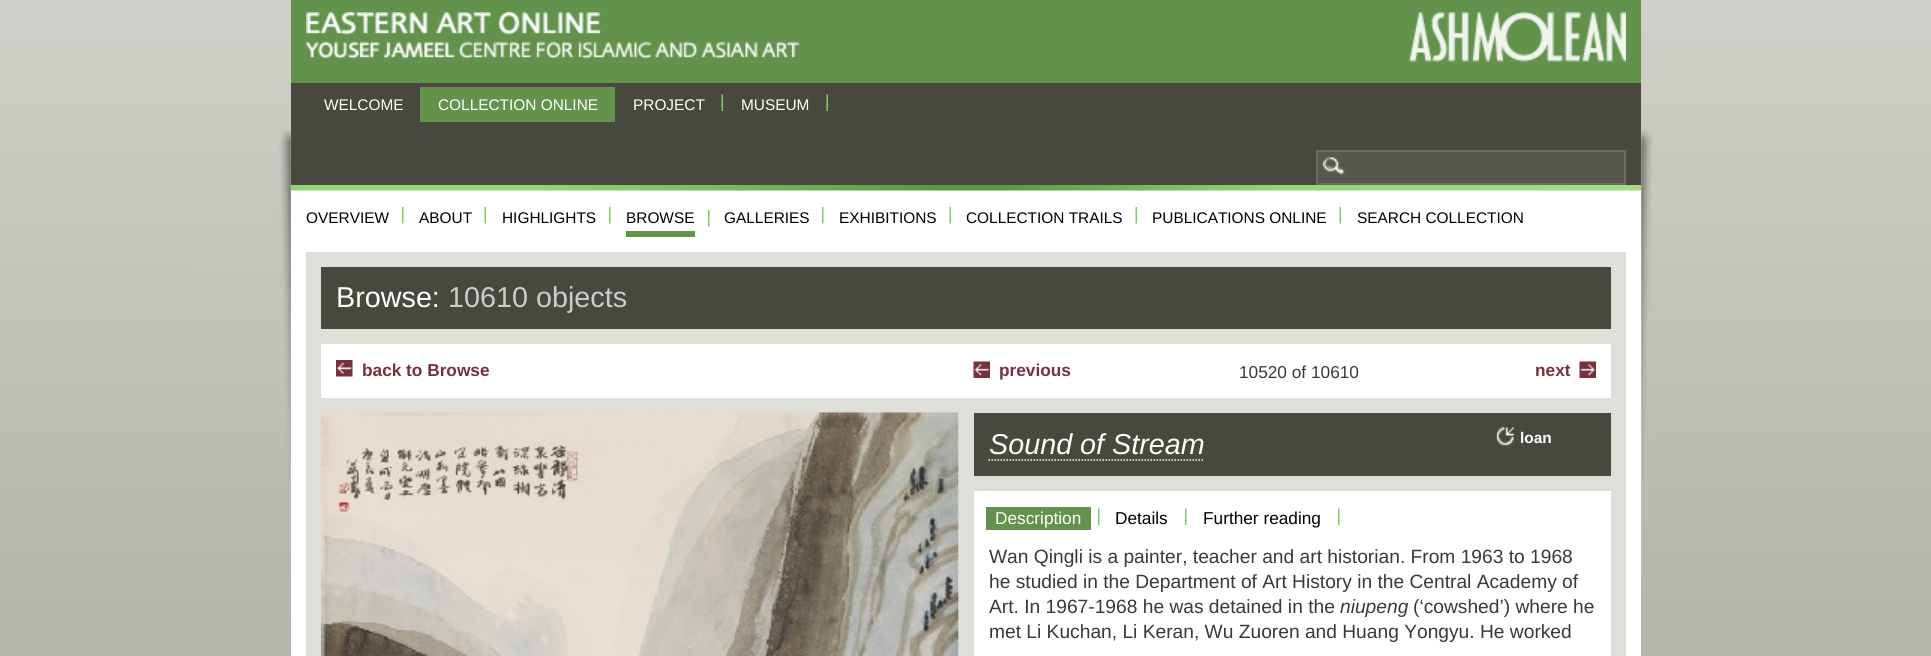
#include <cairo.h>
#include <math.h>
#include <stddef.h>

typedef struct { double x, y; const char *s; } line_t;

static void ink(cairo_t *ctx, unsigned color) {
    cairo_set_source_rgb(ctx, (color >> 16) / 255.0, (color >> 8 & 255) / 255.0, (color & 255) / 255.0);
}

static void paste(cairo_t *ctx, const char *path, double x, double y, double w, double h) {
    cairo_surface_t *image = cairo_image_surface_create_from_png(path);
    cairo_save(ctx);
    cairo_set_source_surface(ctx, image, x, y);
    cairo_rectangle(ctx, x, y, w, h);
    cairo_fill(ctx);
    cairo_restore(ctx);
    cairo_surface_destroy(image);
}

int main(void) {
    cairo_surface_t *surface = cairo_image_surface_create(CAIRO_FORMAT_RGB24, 1931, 656);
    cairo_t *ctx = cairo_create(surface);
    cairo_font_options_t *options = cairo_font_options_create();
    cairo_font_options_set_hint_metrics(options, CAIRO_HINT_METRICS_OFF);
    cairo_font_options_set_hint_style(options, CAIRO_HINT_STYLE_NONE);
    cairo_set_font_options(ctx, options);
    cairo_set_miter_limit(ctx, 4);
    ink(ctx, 0xFFFFFF);
    cairo_paint(ctx);
    paste(ctx, "media/1.png", 0, 0, 1931, 656);
    paste(ctx, "media/2.png", 279, 127, 1374, 355);
    ink(ctx, 0x62924C);
    cairo_rectangle(ctx, 291, 0, 1350, 83);
    cairo_fill(ctx);
    paste(ctx, "media/3.png", 306, 12, 494, 47);
    paste(ctx, "media/4.png", 1408, 12, 218, 50);
    ink(ctx, 0x48483E);
    cairo_rectangle(ctx, 291, 83, 1350, 102);
    cairo_fill(ctx);
    cairo_select_font_face(ctx, "Liberation Sans", CAIRO_FONT_SLANT_NORMAL, CAIRO_FONT_WEIGHT_NORMAL);
    cairo_set_font_size(ctx, 15.4);
    ink(ctx, 0xFFFFFF);
    cairo_move_to(ctx, 324, 110);
    cairo_show_text(ctx, "WELCOME");
    ink(ctx, 0x62924C);
    cairo_rectangle(ctx, 420, 87, 195, 35);
    cairo_fill(ctx);
    ink(ctx, 0xFFFFFF);
    cairo_move_to(ctx, 438, 110);
    cairo_show_text(ctx, "COLLECTION ONLINE");
    paste(ctx, "media/5.png", 721, 94, 2, 17);
    cairo_move_to(ctx, 633, 110);
    cairo_show_text(ctx, "PROJECT");
    paste(ctx, "media/5.png", 826, 94, 2, 17);
    cairo_move_to(ctx, 741, 110);
    cairo_show_text(ctx, "MUSEUM");
    ink(ctx, 0x57574E);
    cairo_rectangle(ctx, 1318, 152, 306, 31);
    cairo_fill(ctx);
    paste(ctx, "media/6.png", 1322, 157, 23, 18);
    cairo_rectangle(ctx, 1317, 151, 308, 33);
    ink(ctx, 0x6B6B5F);
    cairo_stroke(ctx);
    ink(ctx, 0xFFFFFF);
    cairo_rectangle(ctx, 291, 190, 1350, 466);
    cairo_fill(ctx);
    paste(ctx, "media/7.png", 291, 185, 1350, 6);
    paste(ctx, "media/8.png", 402, 207, 2, 17);
    ink(ctx, 0x000000);
    cairo_move_to(ctx, 306, 223);
    cairo_show_text(ctx, "OVERVIEW");
    paste(ctx, "media/9.png", 484, 207, 2, 17);
    cairo_move_to(ctx, 419, 223);
    cairo_show_text(ctx, "ABOUT");
    paste(ctx, "media/8.png", 609, 207, 2, 17);
    cairo_move_to(ctx, 502, 223);
    cairo_show_text(ctx, "HIGHLIGHTS");
    paste(ctx, "media/8.png", 708, 210, 2, 17);
    ink(ctx, 0x62924C);
    cairo_rectangle(ctx, 626, 231, 69, 6);
    cairo_fill(ctx);
    ink(ctx, 0x000000);
    cairo_move_to(ctx, 626, 223);
    cairo_show_text(ctx, "BROWSE");
    paste(ctx, "media/8.png", 822, 207, 2, 17);
    cairo_move_to(ctx, 724, 223);
    cairo_show_text(ctx, "GALLERIES");
    paste(ctx, "media/9.png", 949, 207, 2, 17);
    cairo_move_to(ctx, 839, 223);
    cairo_show_text(ctx, "EXHIBITIONS");
    paste(ctx, "media/9.png", 1135, 207, 2, 17);
    cairo_move_to(ctx, 966, 223);
    cairo_show_text(ctx, "COLLECTION TRAILS");
    paste(ctx, "media/9.png", 1339, 207, 2, 17);
    cairo_move_to(ctx, 1152, 223);
    cairo_show_text(ctx, "PUBLICATIONS ONLINE");
    cairo_move_to(ctx, 1357, 223);
    cairo_show_text(ctx, "SEARCH COLLECTION");
    ink(ctx, 0xDFDFDA);
    cairo_rectangle(ctx, 306, 252, 1320, 404);
    cairo_fill(ctx);
    ink(ctx, 0x48483E);
    cairo_rectangle(ctx, 321, 267, 1290, 62);
    cairo_fill(ctx);
    cairo_set_font_size(ctx, 28.75);
    ink(ctx, 0xFFFFFF);
    cairo_move_to(ctx, 336, 307);
    cairo_show_text(ctx, "Browse:");
    ink(ctx, 0xCCCCCC);
    cairo_move_to(ctx, 448, 307);
    cairo_show_text(ctx, "10610 objects");
    ink(ctx, 0xFFFFFF);
    cairo_rectangle(ctx, 321, 344, 1290, 54);
    cairo_fill(ctx);
    paste(ctx, "media/10.png", 336, 360, 17, 17);
    cairo_select_font_face(ctx, "Liberation Sans", CAIRO_FONT_SLANT_NORMAL, CAIRO_FONT_WEIGHT_BOLD);
    cairo_set_font_size(ctx, 17.25);
    ink(ctx, 0x76313F);
    cairo_move_to(ctx, 362, 376);
    cairo_show_text(ctx, "back to Browse");
    paste(ctx, "media/11.png", 973, 361, 17, 17);
    cairo_move_to(ctx, 999, 376);
    cairo_show_text(ctx, "previous");
    cairo_select_font_face(ctx, "Liberation Sans", CAIRO_FONT_SLANT_NORMAL, CAIRO_FONT_WEIGHT_NORMAL);
    ink(ctx, 0x383938);
    cairo_move_to(ctx, 1239, 378);
    cairo_show_text(ctx, "10520 of 10610");
    cairo_select_font_face(ctx, "Liberation Sans", CAIRO_FONT_SLANT_NORMAL, CAIRO_FONT_WEIGHT_BOLD);
    ink(ctx, 0x76313F);
    cairo_move_to(ctx, 1535, 376);
    cairo_show_text(ctx, "next");
    paste(ctx, "media/12.png", 1579, 361, 17, 17);
    ink(ctx, 0xFFFFFF);
    cairo_rectangle(ctx, 958, 413, 1, 243);
    cairo_fill(ctx);
    paste(ctx, "media/13.png", 321, 412, 638, 244);
    cairo_rectangle(ctx, 974, 491, 637, 165);
    cairo_fill(ctx);
    ink(ctx, 0x48483E);
    cairo_rectangle(ctx, 974, 413, 637, 63);
    cairo_fill(ctx);
    cairo_select_font_face(ctx, "Liberation Sans", CAIRO_FONT_SLANT_ITALIC, CAIRO_FONT_WEIGHT_NORMAL);
    cairo_set_font_size(ctx, 28.75);
    ink(ctx, 0xFFFFFF);
    cairo_move_to(ctx, 989, 454);
    cairo_show_text(ctx, "Sound of Stream");
    cairo_new_path(ctx);
    cairo_move_to(ctx, 988.5, 460);
    cairo_line_to(ctx, 1204.5, 460);
    cairo_set_line_width(ctx, 1.5);
    cairo_set_dash(ctx, (double[]){1.5, 1.5}, 2, 0);
    cairo_stroke(ctx);
    paste(ctx, "media/14.png", 1496, 427, 18, 19);
    cairo_select_font_face(ctx, "Liberation Sans", CAIRO_FONT_SLANT_NORMAL, CAIRO_FONT_WEIGHT_BOLD);
    cairo_set_font_size(ctx, 15.4);
    cairo_move_to(ctx, 1520, 443);
    cairo_show_text(ctx, "loan");
    paste(ctx, "media/15.png", 1098, 508, 2, 17);
    ink(ctx, 0x62924C);
    cairo_rectangle(ctx, 986, 507, 105, 23);
    cairo_fill(ctx);
    cairo_select_font_face(ctx, "Liberation Sans", CAIRO_FONT_SLANT_NORMAL, CAIRO_FONT_WEIGHT_NORMAL);
    cairo_set_font_size(ctx, 17.25);
    ink(ctx, 0xFFFFFF);
    cairo_move_to(ctx, 995, 524);
    cairo_show_text(ctx, "Description");
    paste(ctx, "media/15.png", 1185, 508, 2, 17);
    ink(ctx, 0x000000);
    cairo_move_to(ctx, 1115, 524);
    cairo_show_text(ctx, "Details");
    paste(ctx, "media/15.png", 1338, 508, 2, 17);
    cairo_move_to(ctx, 1203, 524);
    cairo_show_text(ctx, "Further reading");
    cairo_set_font_size(ctx, 19.2);
    ink(ctx, 0x383938);
    {
        static const line_t items[] = {
            {989, 563, "Wan Qingli is a painter, teacher and art historian. From 1963 to 1968"},
            {989, 588, "he studied in the Department of Art History in the Central Academy of"},
            {989, 613, "Art. In 1967-1968 he was detained in the"},
        };
        for (size_t i = 0; i < sizeof items / sizeof *items; i++) {
            cairo_move_to(ctx, items[i].x, items[i].y);
            cairo_show_text(ctx, items[i].s);
        }
    }
    cairo_select_font_face(ctx, "Liberation Sans", CAIRO_FONT_SLANT_ITALIC, CAIRO_FONT_WEIGHT_NORMAL);
    cairo_move_to(ctx, 1340, 613);
    cairo_show_text(ctx, "niupeng");
    cairo_select_font_face(ctx, "Liberation Sans", CAIRO_FONT_SLANT_NORMAL, CAIRO_FONT_WEIGHT_NORMAL);
    cairo_move_to(ctx, 1413, 613);
    cairo_show_text(ctx, "(‘cowshed’) where he");
    cairo_move_to(ctx, 989, 638);
    cairo_show_text(ctx, "met Li Kuchan, Li Keran, Wu Zuoren and Huang Yongyu. He worked");
    cairo_surface_write_to_png(surface, "image.png");
    cairo_font_options_destroy(options);
    cairo_destroy(ctx);
    cairo_surface_destroy(surface);
    return 0;
}
